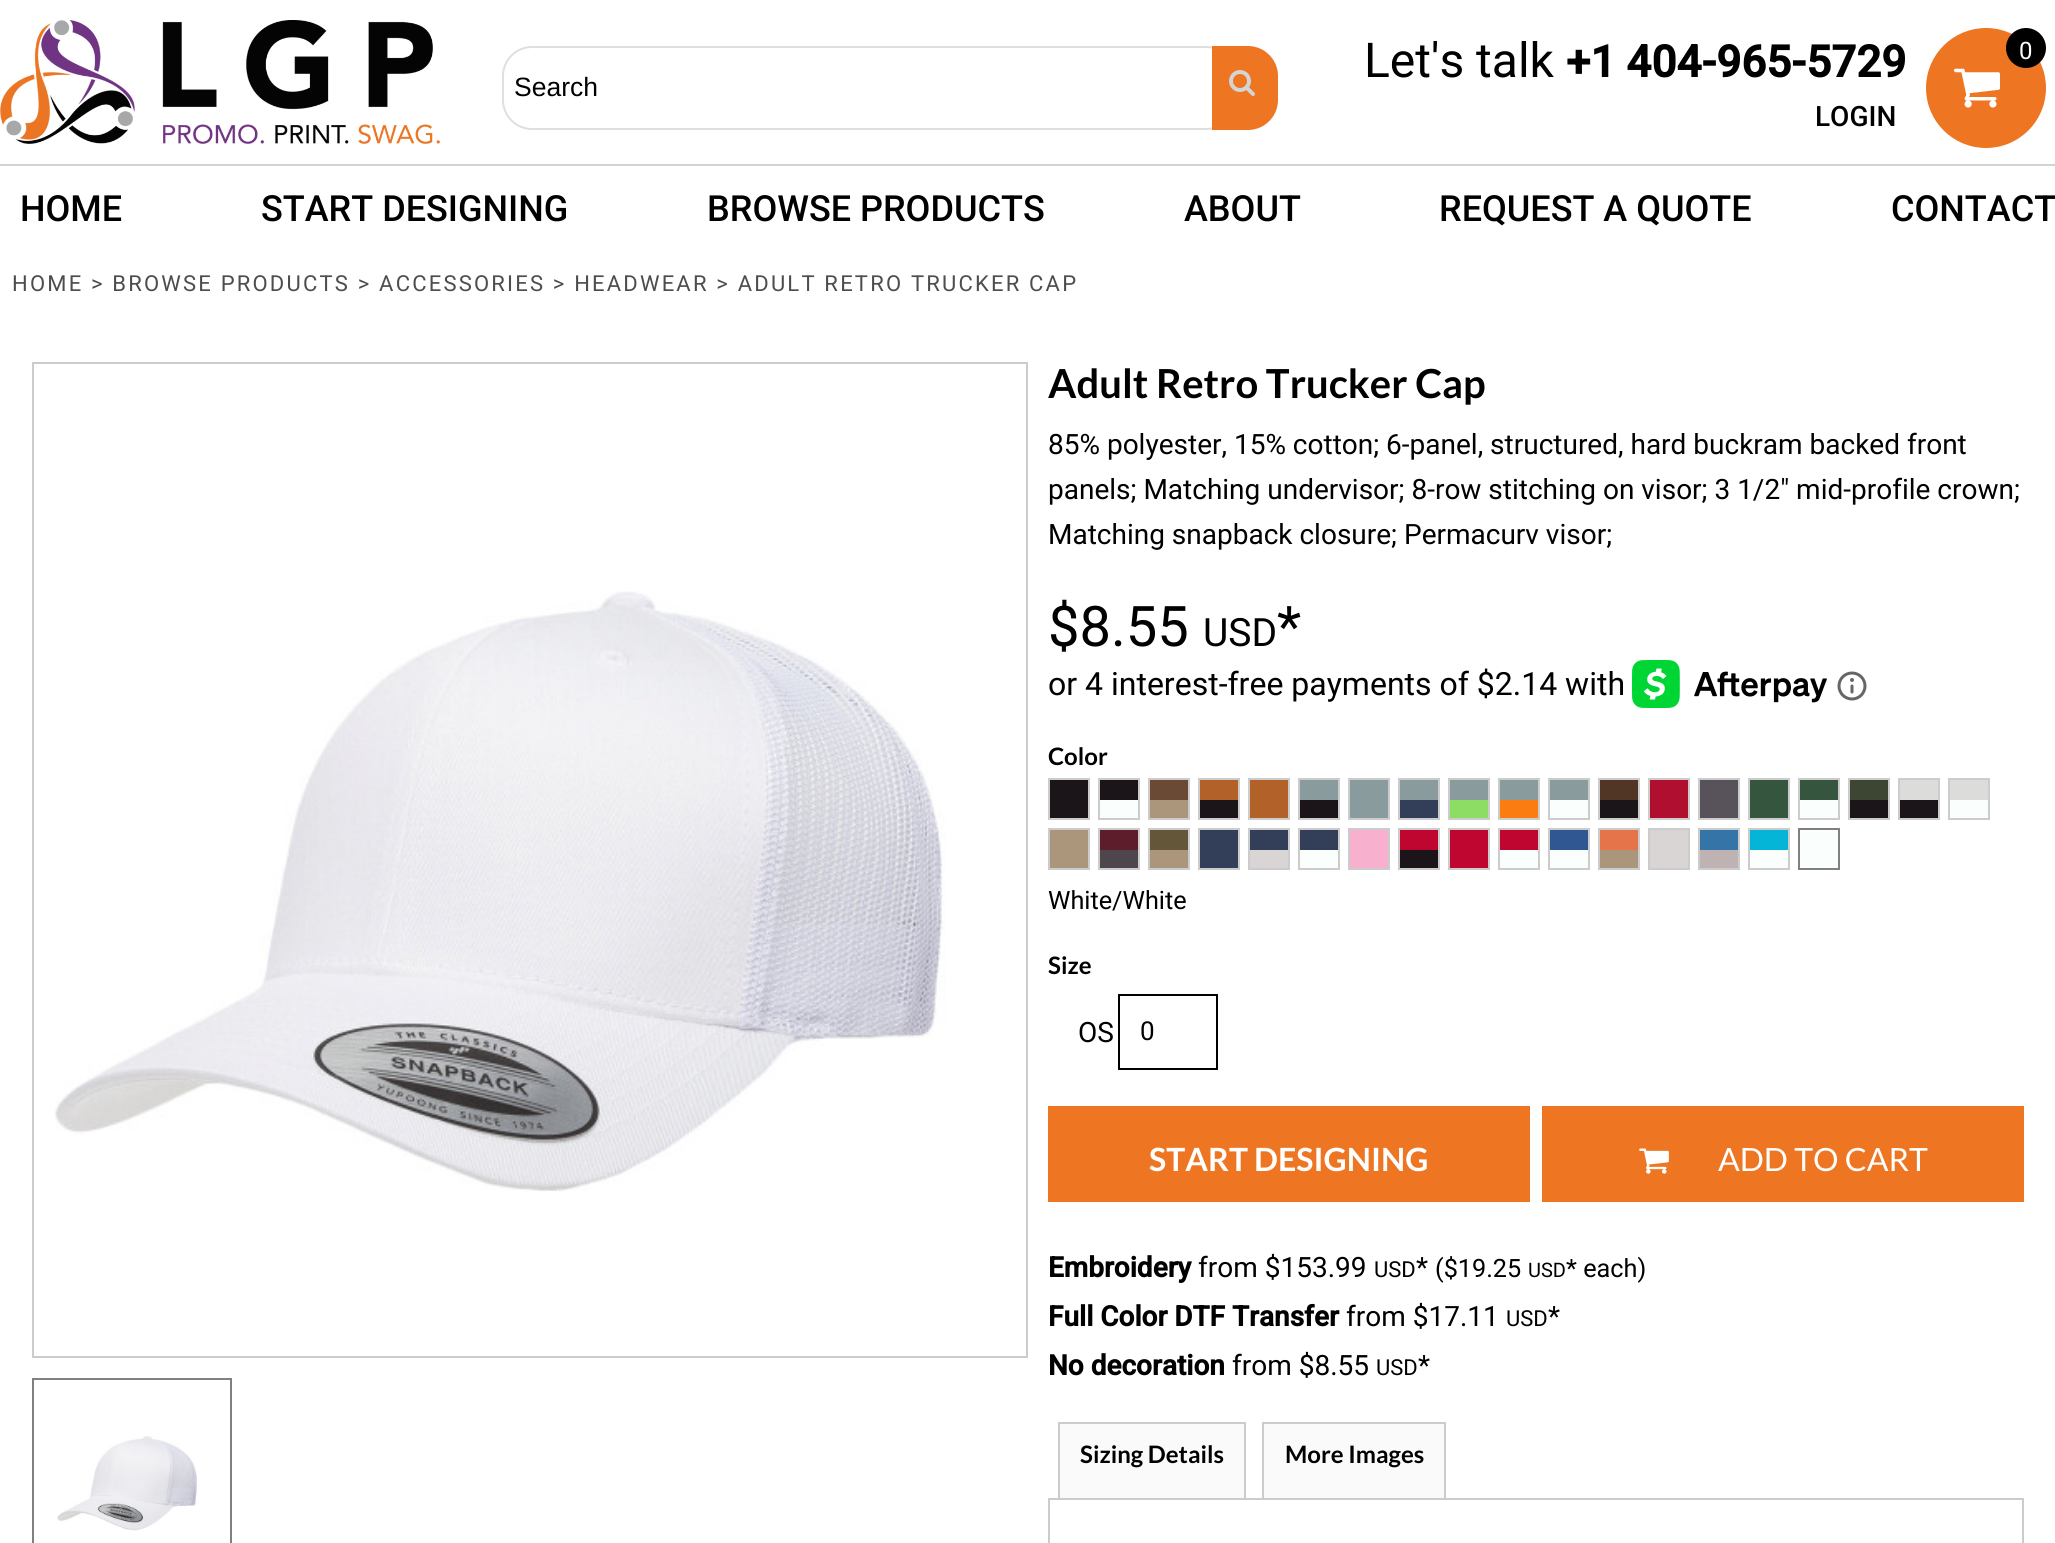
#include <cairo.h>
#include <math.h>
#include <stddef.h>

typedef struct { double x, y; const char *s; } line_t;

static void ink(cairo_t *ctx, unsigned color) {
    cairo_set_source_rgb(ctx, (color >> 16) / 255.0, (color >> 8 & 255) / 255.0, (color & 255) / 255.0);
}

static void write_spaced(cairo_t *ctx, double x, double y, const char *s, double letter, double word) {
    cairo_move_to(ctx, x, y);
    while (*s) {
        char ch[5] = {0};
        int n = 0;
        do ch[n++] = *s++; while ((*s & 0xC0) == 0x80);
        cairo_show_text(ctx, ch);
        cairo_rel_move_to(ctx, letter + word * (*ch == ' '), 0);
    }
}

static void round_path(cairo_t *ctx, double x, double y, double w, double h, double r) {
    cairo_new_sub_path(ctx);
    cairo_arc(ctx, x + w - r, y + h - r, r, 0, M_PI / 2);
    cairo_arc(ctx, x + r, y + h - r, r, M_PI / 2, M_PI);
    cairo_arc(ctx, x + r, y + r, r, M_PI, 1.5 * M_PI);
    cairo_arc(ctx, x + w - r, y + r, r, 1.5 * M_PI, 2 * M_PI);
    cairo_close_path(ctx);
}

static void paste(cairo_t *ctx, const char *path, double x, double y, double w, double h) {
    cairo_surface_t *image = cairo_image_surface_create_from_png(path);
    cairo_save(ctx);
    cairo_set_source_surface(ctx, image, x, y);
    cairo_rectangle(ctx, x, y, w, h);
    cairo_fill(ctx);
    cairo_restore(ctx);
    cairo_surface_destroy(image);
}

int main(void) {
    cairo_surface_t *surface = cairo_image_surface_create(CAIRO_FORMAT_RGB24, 2055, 1543);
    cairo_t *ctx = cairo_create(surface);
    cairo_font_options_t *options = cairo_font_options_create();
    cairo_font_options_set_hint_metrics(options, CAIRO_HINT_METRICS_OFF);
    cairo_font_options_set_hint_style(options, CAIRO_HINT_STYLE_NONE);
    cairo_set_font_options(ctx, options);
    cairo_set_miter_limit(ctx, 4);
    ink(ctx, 0xFFFFFF);
    cairo_paint(ctx);
    paste(ctx, "media/1.png", 0, 20, 440, 124);
    round_path(ctx, 503, 47, 732, 82, 29);
    ink(ctx, 0xDFDFDF);
    cairo_stroke(ctx);
    cairo_select_font_face(ctx, "Liberation Sans", CAIRO_FONT_SLANT_NORMAL, CAIRO_FONT_WEIGHT_NORMAL);
    cairo_set_font_size(ctx, 26.5);
    ink(ctx, 0x000000);
    cairo_move_to(ctx, 514, 96);
    cairo_show_text(ctx, "Search");
    ink(ctx, 0xEE7623);
    cairo_new_path(ctx);
    cairo_move_to(ctx, 1212, 46);
    cairo_line_to(ctx, 1248, 46);
    cairo_curve_to(ctx, 1264.5, 46, 1278, 59.5, 1278, 76);
    cairo_line_to(ctx, 1278, 100);
    cairo_curve_to(ctx, 1278, 116.5, 1264.5, 130, 1248, 130);
    cairo_line_to(ctx, 1212, 130);
    cairo_close_path(ctx);
    cairo_fill(ctx);
    paste(ctx, "media/2.png", 1229, 70, 26, 26);
    cairo_select_font_face(ctx, "Roboto", CAIRO_FONT_SLANT_NORMAL, CAIRO_FONT_WEIGHT_NORMAL);
    cairo_set_font_size(ctx, 48);
    ink(ctx, 0x000000);
    cairo_move_to(ctx, 1364, 77);
    cairo_show_text(ctx, "Let's talk");
    cairo_select_font_face(ctx, "Roboto", CAIRO_FONT_SLANT_NORMAL, CAIRO_FONT_WEIGHT_BOLD);
    cairo_set_font_size(ctx, 44);
    cairo_move_to(ctx, 1566, 77);
    cairo_show_text(ctx, "+1 404-965-5729");
    cairo_select_font_face(ctx, "Roboto Medium", CAIRO_FONT_SLANT_NORMAL, CAIRO_FONT_WEIGHT_NORMAL);
    cairo_set_font_size(ctx, 28);
    cairo_move_to(ctx, 1815, 126);
    cairo_show_text(ctx, "LOGIN");
    ink(ctx, 0xEE7623);
    cairo_new_path(ctx);
    cairo_arc(ctx, 1986, 88, 60, 0, 2 * M_PI);
    cairo_fill(ctx);
    paste(ctx, "media/3.png", 1954, 68, 46, 40);
    ink(ctx, 0x000000);
    cairo_arc(ctx, 2026, 48, 19, 0, 2 * M_PI);
    cairo_fill_preserve(ctx);
    cairo_stroke(ctx);
    cairo_select_font_face(ctx, "Roboto", CAIRO_FONT_SLANT_NORMAL, CAIRO_FONT_WEIGHT_NORMAL);
    cairo_set_font_size(ctx, 24);
    ink(ctx, 0xFFFFFF);
    cairo_move_to(ctx, 2019, 59);
    cairo_show_text(ctx, "0");
    ink(ctx, 0xD1D3D4);
    cairo_rectangle(ctx, 0, 164, 2055, 2);
    cairo_fill(ctx);
    cairo_select_font_face(ctx, "Roboto Medium", CAIRO_FONT_SLANT_NORMAL, CAIRO_FONT_WEIGHT_NORMAL);
    cairo_set_font_size(ctx, 36);
    ink(ctx, 0x000000);
    {
        static const line_t items[] = {
            {20, 221, "HOME"},
            {261, 221, "START DESIGNING"},
            {707, 221, "BROWSE PRODUCTS"},
            {1184, 221, "ABOUT"},
            {1439, 221, "REQUEST A QUOTE"},
            {1891, 221, "CONTACT"},
        };
        for (size_t i = 0; i < sizeof items / sizeof *items; i++) {
            cairo_move_to(ctx, items[i].x, items[i].y);
            cairo_show_text(ctx, items[i].s);
        }
    }
    cairo_select_font_face(ctx, "Roboto", CAIRO_FONT_SLANT_NORMAL, CAIRO_FONT_WEIGHT_NORMAL);
    cairo_set_font_size(ctx, 22);
    ink(ctx, 0x4D4D4D);
    write_spaced(ctx, 12, 291, "HOME > BROWSE PRODUCTS > ACCESSORIES > HEADWEAR > ADULT RETRO TRUCKER CAP", 2.2, 0);
    cairo_rectangle(ctx, 33, 363, 994, 994);
    ink(ctx, 0xCCCCCC);
    cairo_stroke(ctx);
    paste(ctx, "media/4.png", 55, 591, 891, 601);
    cairo_rectangle(ctx, 33, 1379, 198, 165);
    ink(ctx, 0x808080);
    cairo_stroke(ctx);
    paste(ctx, "media/5.png", 57, 1436, 140, 95);
    cairo_select_font_face(ctx, "Lato", CAIRO_FONT_SLANT_NORMAL, CAIRO_FONT_WEIGHT_BOLD);
    cairo_set_font_size(ctx, 40);
    ink(ctx, 0x000000);
    cairo_move_to(ctx, 1048, 398);
    cairo_show_text(ctx, "Adult Retro Trucker Cap");
    cairo_select_font_face(ctx, "Roboto", CAIRO_FONT_SLANT_NORMAL, CAIRO_FONT_WEIGHT_NORMAL);
    cairo_set_font_size(ctx, 28);
    {
        static const line_t items[] = {
            {1048, 454, "85% polyester, 15% cotton; 6-panel, structured, hard buckram backed front"},
            {1048, 499, "panels; Matching undervisor; 8-row stitching on visor; 3 1/2\" mid-profile crown;"},
            {1048, 544, "Matching snapback closure; Permacurv visor;"},
        };
        for (size_t i = 0; i < sizeof items / sizeof *items; i++) {
            cairo_move_to(ctx, items[i].x, items[i].y);
            cairo_show_text(ctx, items[i].s);
        }
    }
    cairo_set_font_size(ctx, 56);
    cairo_move_to(ctx, 1048, 646);
    cairo_show_text(ctx, "$8.55");
    cairo_set_font_size(ctx, 39);
    cairo_move_to(ctx, 1203, 646);
    cairo_show_text(ctx, "USD");
    cairo_set_font_size(ctx, 56);
    cairo_move_to(ctx, 1277, 646);
    cairo_show_text(ctx, "*");
    cairo_set_font_size(ctx, 32);
    cairo_move_to(ctx, 1048, 695);
    cairo_show_text(ctx, "or 4 interest-free payments of $2.14 with");
    paste(ctx, "media/6.png", 1632, 660, 195, 48);
    paste(ctx, "media/7.png", 1837, 671, 30, 30);
    cairo_select_font_face(ctx, "Lato", CAIRO_FONT_SLANT_NORMAL, CAIRO_FONT_WEIGHT_BOLD);
    cairo_set_font_size(ctx, 24);
    cairo_move_to(ctx, 1048, 765);
    cairo_show_text(ctx, "Color");
    cairo_rectangle(ctx, 1049, 779, 40, 40);
    ink(ctx, 0xCCCCCC);
    cairo_stroke(ctx);
    ink(ctx, 0x1B151A);
    cairo_rectangle(ctx, 1050, 780, 38, 38);
    cairo_fill(ctx);
    cairo_rectangle(ctx, 1099, 779, 40, 40);
    ink(ctx, 0xCCCCCC);
    cairo_stroke(ctx);
    ink(ctx, 0x1B151A);
    cairo_rectangle(ctx, 1100, 780, 38, 20);
    cairo_fill(ctx);
    ink(ctx, 0xFAFFFE);
    cairo_rectangle(ctx, 1100, 800, 38, 18);
    cairo_fill(ctx);
    cairo_rectangle(ctx, 1149, 779, 40, 40);
    ink(ctx, 0xCCCCCC);
    cairo_stroke(ctx);
    ink(ctx, 0x6B4A35);
    cairo_rectangle(ctx, 1150, 780, 38, 20);
    cairo_fill(ctx);
    ink(ctx, 0xAB967B);
    cairo_rectangle(ctx, 1150, 800, 38, 18);
    cairo_fill(ctx);
    cairo_rectangle(ctx, 1199, 779, 40, 40);
    ink(ctx, 0xCCCCCC);
    cairo_stroke(ctx);
    ink(ctx, 0xB26128);
    cairo_rectangle(ctx, 1200, 780, 38, 20);
    cairo_fill(ctx);
    ink(ctx, 0x1B151A);
    cairo_rectangle(ctx, 1200, 800, 38, 18);
    cairo_fill(ctx);
    cairo_rectangle(ctx, 1249, 779, 40, 40);
    ink(ctx, 0xCCCCCC);
    cairo_stroke(ctx);
    ink(ctx, 0xB26128);
    cairo_rectangle(ctx, 1250, 780, 38, 38);
    cairo_fill(ctx);
    cairo_rectangle(ctx, 1299, 779, 40, 40);
    ink(ctx, 0xCCCCCC);
    cairo_stroke(ctx);
    ink(ctx, 0x8A9B9E);
    cairo_rectangle(ctx, 1300, 780, 38, 20);
    cairo_fill(ctx);
    ink(ctx, 0x1B151A);
    cairo_rectangle(ctx, 1300, 800, 38, 18);
    cairo_fill(ctx);
    cairo_rectangle(ctx, 1349, 779, 40, 40);
    ink(ctx, 0xCCCCCC);
    cairo_stroke(ctx);
    ink(ctx, 0x8A9B9E);
    cairo_rectangle(ctx, 1350, 780, 38, 38);
    cairo_fill(ctx);
    cairo_rectangle(ctx, 1399, 779, 40, 40);
    ink(ctx, 0xCCCCCC);
    cairo_stroke(ctx);
    ink(ctx, 0x8A9B9E);
    cairo_rectangle(ctx, 1400, 780, 38, 20);
    cairo_fill(ctx);
    ink(ctx, 0x333E59);
    cairo_rectangle(ctx, 1400, 800, 38, 18);
    cairo_fill(ctx);
    cairo_rectangle(ctx, 1449, 779, 40, 40);
    ink(ctx, 0xCCCCCC);
    cairo_stroke(ctx);
    ink(ctx, 0x8A9B9E);
    cairo_rectangle(ctx, 1450, 780, 38, 20);
    cairo_fill(ctx);
    ink(ctx, 0x8DDD65);
    cairo_rectangle(ctx, 1450, 800, 38, 18);
    cairo_fill(ctx);
    cairo_rectangle(ctx, 1499, 779, 40, 40);
    ink(ctx, 0xCCCCCC);
    cairo_stroke(ctx);
    ink(ctx, 0x8A9B9E);
    cairo_rectangle(ctx, 1500, 780, 38, 20);
    cairo_fill(ctx);
    ink(ctx, 0xFB7D12);
    cairo_rectangle(ctx, 1500, 800, 38, 18);
    cairo_fill(ctx);
    cairo_rectangle(ctx, 1549, 779, 40, 40);
    ink(ctx, 0xCCCCCC);
    cairo_stroke(ctx);
    ink(ctx, 0x8A9B9E);
    cairo_rectangle(ctx, 1550, 780, 38, 20);
    cairo_fill(ctx);
    ink(ctx, 0xFAFFFE);
    cairo_rectangle(ctx, 1550, 800, 38, 18);
    cairo_fill(ctx);
    cairo_rectangle(ctx, 1599, 779, 40, 40);
    ink(ctx, 0xCCCCCC);
    cairo_stroke(ctx);
    ink(ctx, 0x523625);
    cairo_rectangle(ctx, 1600, 780, 38, 20);
    cairo_fill(ctx);
    ink(ctx, 0x1B151A);
    cairo_rectangle(ctx, 1600, 800, 38, 18);
    cairo_fill(ctx);
    cairo_rectangle(ctx, 1649, 779, 40, 40);
    ink(ctx, 0xCCCCCC);
    cairo_stroke(ctx);
    ink(ctx, 0xB10F30);
    cairo_rectangle(ctx, 1650, 780, 38, 38);
    cairo_fill(ctx);
    cairo_rectangle(ctx, 1699, 779, 40, 40);
    ink(ctx, 0xCCCCCC);
    cairo_stroke(ctx);
    ink(ctx, 0x58525B);
    cairo_rectangle(ctx, 1700, 780, 38, 38);
    cairo_fill(ctx);
    cairo_rectangle(ctx, 1749, 779, 40, 40);
    ink(ctx, 0xCCCCCC);
    cairo_stroke(ctx);
    ink(ctx, 0x35553E);
    cairo_rectangle(ctx, 1750, 780, 38, 38);
    cairo_fill(ctx);
    cairo_rectangle(ctx, 1799, 779, 40, 40);
    ink(ctx, 0xCCCCCC);
    cairo_stroke(ctx);
    ink(ctx, 0x35553E);
    cairo_rectangle(ctx, 1800, 780, 38, 20);
    cairo_fill(ctx);
    ink(ctx, 0xFAFFFE);
    cairo_rectangle(ctx, 1800, 800, 38, 18);
    cairo_fill(ctx);
    cairo_rectangle(ctx, 1849, 779, 40, 40);
    ink(ctx, 0xCCCCCC);
    cairo_stroke(ctx);
    ink(ctx, 0x3D4633);
    cairo_rectangle(ctx, 1850, 780, 38, 20);
    cairo_fill(ctx);
    ink(ctx, 0x1B151A);
    cairo_rectangle(ctx, 1850, 800, 38, 18);
    cairo_fill(ctx);
    cairo_rectangle(ctx, 1899, 779, 40, 40);
    ink(ctx, 0xCCCCCC);
    cairo_stroke(ctx);
    ink(ctx, 0xDCDDDB);
    cairo_rectangle(ctx, 1900, 780, 38, 20);
    cairo_fill(ctx);
    ink(ctx, 0x1B151A);
    cairo_rectangle(ctx, 1900, 800, 38, 18);
    cairo_fill(ctx);
    cairo_rectangle(ctx, 1949, 779, 40, 40);
    ink(ctx, 0xCCCCCC);
    cairo_stroke(ctx);
    ink(ctx, 0xDCDDDB);
    cairo_rectangle(ctx, 1950, 780, 38, 20);
    cairo_fill(ctx);
    ink(ctx, 0xFAFFFE);
    cairo_rectangle(ctx, 1950, 800, 38, 18);
    cairo_fill(ctx);
    cairo_rectangle(ctx, 1049, 829, 40, 40);
    ink(ctx, 0xCCCCCC);
    cairo_stroke(ctx);
    ink(ctx, 0xAB967B);
    cairo_rectangle(ctx, 1050, 830, 38, 38);
    cairo_fill(ctx);
    cairo_rectangle(ctx, 1099, 829, 40, 40);
    ink(ctx, 0xCCCCCC);
    cairo_stroke(ctx);
    ink(ctx, 0x5D1D2A);
    cairo_rectangle(ctx, 1100, 830, 38, 20);
    cairo_fill(ctx);
    ink(ctx, 0x4D464D);
    cairo_rectangle(ctx, 1100, 850, 38, 18);
    cairo_fill(ctx);
    cairo_rectangle(ctx, 1149, 829, 40, 40);
    ink(ctx, 0xCCCCCC);
    cairo_stroke(ctx);
    ink(ctx, 0x645638);
    cairo_rectangle(ctx, 1150, 830, 38, 20);
    cairo_fill(ctx);
    ink(ctx, 0xAB967B);
    cairo_rectangle(ctx, 1150, 850, 38, 18);
    cairo_fill(ctx);
    cairo_rectangle(ctx, 1199, 829, 40, 40);
    ink(ctx, 0xCCCCCC);
    cairo_stroke(ctx);
    ink(ctx, 0x333E59);
    cairo_rectangle(ctx, 1200, 830, 38, 38);
    cairo_fill(ctx);
    cairo_rectangle(ctx, 1249, 829, 40, 40);
    ink(ctx, 0xCCCCCC);
    cairo_stroke(ctx);
    ink(ctx, 0x333E59);
    cairo_rectangle(ctx, 1250, 830, 38, 20);
    cairo_fill(ctx);
    ink(ctx, 0xD9D5D4);
    cairo_rectangle(ctx, 1250, 850, 38, 18);
    cairo_fill(ctx);
    cairo_rectangle(ctx, 1299, 829, 40, 40);
    ink(ctx, 0xCCCCCC);
    cairo_stroke(ctx);
    ink(ctx, 0x333E59);
    cairo_rectangle(ctx, 1300, 830, 38, 20);
    cairo_fill(ctx);
    ink(ctx, 0xFAFFFE);
    cairo_rectangle(ctx, 1300, 850, 38, 18);
    cairo_fill(ctx);
    cairo_rectangle(ctx, 1349, 829, 40, 40);
    ink(ctx, 0xCCCCCC);
    cairo_stroke(ctx);
    ink(ctx, 0xF7B0CE);
    cairo_rectangle(ctx, 1350, 830, 38, 38);
    cairo_fill(ctx);
    cairo_rectangle(ctx, 1399, 829, 40, 40);
    ink(ctx, 0xCCCCCC);
    cairo_stroke(ctx);
    ink(ctx, 0xBF0630);
    cairo_rectangle(ctx, 1400, 830, 38, 20);
    cairo_fill(ctx);
    ink(ctx, 0x1B151A);
    cairo_rectangle(ctx, 1400, 850, 38, 18);
    cairo_fill(ctx);
    cairo_rectangle(ctx, 1449, 829, 40, 40);
    ink(ctx, 0xCCCCCC);
    cairo_stroke(ctx);
    ink(ctx, 0xBF0630);
    cairo_rectangle(ctx, 1450, 830, 38, 38);
    cairo_fill(ctx);
    cairo_rectangle(ctx, 1499, 829, 40, 40);
    ink(ctx, 0xCCCCCC);
    cairo_stroke(ctx);
    ink(ctx, 0xBF0630);
    cairo_rectangle(ctx, 1500, 830, 38, 20);
    cairo_fill(ctx);
    ink(ctx, 0xFAFFFE);
    cairo_rectangle(ctx, 1500, 850, 38, 18);
    cairo_fill(ctx);
    cairo_rectangle(ctx, 1549, 829, 40, 40);
    ink(ctx, 0xCCCCCC);
    cairo_stroke(ctx);
    ink(ctx, 0x305791);
    cairo_rectangle(ctx, 1550, 830, 38, 20);
    cairo_fill(ctx);
    ink(ctx, 0xFAFFFE);
    cairo_rectangle(ctx, 1550, 850, 38, 18);
    cairo_fill(ctx);
    cairo_rectangle(ctx, 1599, 829, 40, 40);
    ink(ctx, 0xCCCCCC);
    cairo_stroke(ctx);
    ink(ctx, 0xE5744B);
    cairo_rectangle(ctx, 1600, 830, 38, 20);
    cairo_fill(ctx);
    ink(ctx, 0xAB967B);
    cairo_rectangle(ctx, 1600, 850, 38, 18);
    cairo_fill(ctx);
    cairo_rectangle(ctx, 1649, 829, 40, 40);
    ink(ctx, 0xCCCCCC);
    cairo_stroke(ctx);
    ink(ctx, 0xD9D5D4);
    cairo_rectangle(ctx, 1650, 830, 38, 38);
    cairo_fill(ctx);
    cairo_rectangle(ctx, 1699, 829, 40, 40);
    ink(ctx, 0xCCCCCC);
    cairo_stroke(ctx);
    ink(ctx, 0x3474A6);
    cairo_rectangle(ctx, 1700, 830, 38, 20);
    cairo_fill(ctx);
    ink(ctx, 0xBEB2B2);
    cairo_rectangle(ctx, 1700, 850, 38, 18);
    cairo_fill(ctx);
    cairo_rectangle(ctx, 1749, 829, 40, 40);
    ink(ctx, 0xCCCCCC);
    cairo_stroke(ctx);
    ink(ctx, 0x05B5D7);
    cairo_rectangle(ctx, 1750, 830, 38, 20);
    cairo_fill(ctx);
    ink(ctx, 0xFAFFFE);
    cairo_rectangle(ctx, 1750, 850, 38, 18);
    cairo_fill(ctx);
    cairo_rectangle(ctx, 1799, 829, 40, 40);
    ink(ctx, 0x808080);
    cairo_stroke(ctx);
    ink(ctx, 0xFAFFFE);
    cairo_rectangle(ctx, 1800, 830, 38, 38);
    cairo_fill(ctx);
    cairo_select_font_face(ctx, "Roboto", CAIRO_FONT_SLANT_NORMAL, CAIRO_FONT_WEIGHT_NORMAL);
    cairo_set_font_size(ctx, 25.25);
    ink(ctx, 0x000000);
    cairo_move_to(ctx, 1048, 909);
    cairo_show_text(ctx, "White/White");
    cairo_select_font_face(ctx, "Lato", CAIRO_FONT_SLANT_NORMAL, CAIRO_FONT_WEIGHT_BOLD);
    cairo_set_font_size(ctx, 24);
    cairo_move_to(ctx, 1048, 974);
    cairo_show_text(ctx, "Size");
    cairo_select_font_face(ctx, "Roboto", CAIRO_FONT_SLANT_NORMAL, CAIRO_FONT_WEIGHT_NORMAL);
    cairo_set_font_size(ctx, 28);
    cairo_move_to(ctx, 1078, 1042);
    cairo_show_text(ctx, "OS");
    cairo_rectangle(ctx, 1119, 995, 98, 74);
    cairo_stroke(ctx);
    cairo_set_font_size(ctx, 26);
    cairo_move_to(ctx, 1140, 1040);
    cairo_show_text(ctx, "0");
    ink(ctx, 0xEE7623);
    cairo_rectangle(ctx, 1048, 1106, 482, 96);
    cairo_fill(ctx);
    cairo_select_font_face(ctx, "Lato", CAIRO_FONT_SLANT_NORMAL, CAIRO_FONT_WEIGHT_BOLD);
    cairo_set_font_size(ctx, 32);
    ink(ctx, 0xFFFFFF);
    cairo_move_to(ctx, 1149, 1171);
    cairo_show_text(ctx, "START DESIGNING");
    ink(ctx, 0xEE7623);
    cairo_rectangle(ctx, 1542, 1106, 482, 96);
    cairo_fill(ctx);
    paste(ctx, "media/8.png", 1639, 1148, 30, 26);
    cairo_select_font_face(ctx, "Lato", CAIRO_FONT_SLANT_NORMAL, CAIRO_FONT_WEIGHT_NORMAL);
    ink(ctx, 0xFFFFFF);
    cairo_move_to(ctx, 1718, 1171);
    cairo_show_text(ctx, "ADD TO CART");
    cairo_select_font_face(ctx, "Roboto", CAIRO_FONT_SLANT_NORMAL, CAIRO_FONT_WEIGHT_BOLD);
    cairo_set_font_size(ctx, 28);
    ink(ctx, 0x000000);
    cairo_move_to(ctx, 1048, 1277);
    cairo_show_text(ctx, "Embroidery");
    cairo_select_font_face(ctx, "Roboto", CAIRO_FONT_SLANT_NORMAL, CAIRO_FONT_WEIGHT_NORMAL);
    cairo_move_to(ctx, 1198, 1277);
    cairo_show_text(ctx, "from $153.99");
    cairo_set_font_size(ctx, 22);
    cairo_move_to(ctx, 1374, 1277);
    cairo_show_text(ctx, "USD");
    cairo_set_font_size(ctx, 28);
    cairo_move_to(ctx, 1416, 1277);
    cairo_show_text(ctx, "*");
    cairo_set_font_size(ctx, 25.25);
    cairo_move_to(ctx, 1435, 1277);
    cairo_show_text(ctx, "($19.25");
    cairo_set_font_size(ctx, 20);
    cairo_move_to(ctx, 1528, 1277);
    cairo_show_text(ctx, "USD");
    cairo_set_font_size(ctx, 25.25);
    cairo_move_to(ctx, 1566, 1277);
    cairo_show_text(ctx, "* each)");
    cairo_select_font_face(ctx, "Roboto", CAIRO_FONT_SLANT_NORMAL, CAIRO_FONT_WEIGHT_BOLD);
    cairo_set_font_size(ctx, 28);
    cairo_move_to(ctx, 1048, 1326);
    cairo_show_text(ctx, "Full Color DTF Transfer");
    cairo_select_font_face(ctx, "Roboto", CAIRO_FONT_SLANT_NORMAL, CAIRO_FONT_WEIGHT_NORMAL);
    cairo_move_to(ctx, 1346, 1326);
    cairo_show_text(ctx, "from $17.11");
    cairo_set_font_size(ctx, 22);
    cairo_move_to(ctx, 1506, 1326);
    cairo_show_text(ctx, "USD");
    cairo_set_font_size(ctx, 28);
    cairo_move_to(ctx, 1548, 1326);
    cairo_show_text(ctx, "*");
    cairo_select_font_face(ctx, "Roboto", CAIRO_FONT_SLANT_NORMAL, CAIRO_FONT_WEIGHT_BOLD);
    cairo_move_to(ctx, 1048, 1375);
    cairo_show_text(ctx, "No decoration");
    cairo_select_font_face(ctx, "Roboto", CAIRO_FONT_SLANT_NORMAL, CAIRO_FONT_WEIGHT_NORMAL);
    cairo_move_to(ctx, 1232, 1375);
    cairo_show_text(ctx, "from $8.55");
    cairo_set_font_size(ctx, 22);
    cairo_move_to(ctx, 1376, 1375);
    cairo_show_text(ctx, "USD");
    cairo_set_font_size(ctx, 28);
    cairo_move_to(ctx, 1418, 1375);
    cairo_show_text(ctx, "*");
    cairo_rectangle(ctx, 1049, 1499, 974, 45);
    ink(ctx, 0xCCCCCC);
    cairo_stroke(ctx);
    ink(ctx, 0xFAFAFA);
    cairo_rectangle(ctx, 1059, 1423, 186, 76);
    cairo_fill_preserve(ctx);
    ink(ctx, 0xCCCCCC);
    cairo_stroke(ctx);
    cairo_select_font_face(ctx, "Lato", CAIRO_FONT_SLANT_NORMAL, CAIRO_FONT_WEIGHT_BOLD);
    cairo_set_font_size(ctx, 24);
    ink(ctx, 0x000000);
    cairo_move_to(ctx, 1080, 1463);
    cairo_show_text(ctx, "Sizing Details");
    ink(ctx, 0xFAFAFA);
    cairo_rectangle(ctx, 1263, 1423, 182, 76);
    cairo_fill_preserve(ctx);
    ink(ctx, 0xCCCCCC);
    cairo_stroke(ctx);
    ink(ctx, 0x000000);
    cairo_move_to(ctx, 1285, 1463);
    cairo_show_text(ctx, "More Images");
    cairo_surface_write_to_png(surface, "image.png");
    cairo_font_options_destroy(options);
    cairo_destroy(ctx);
    cairo_surface_destroy(surface);
    return 0;
}
